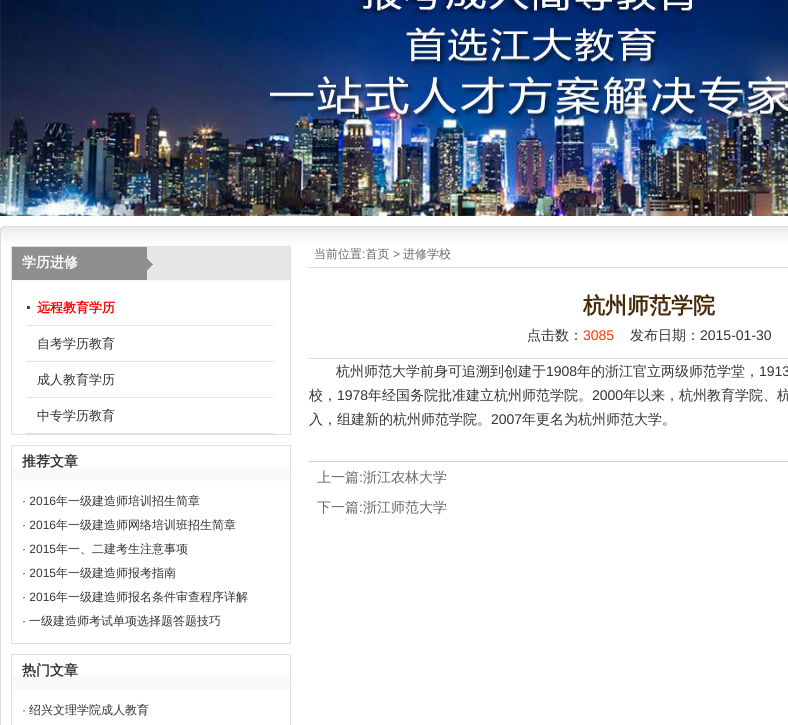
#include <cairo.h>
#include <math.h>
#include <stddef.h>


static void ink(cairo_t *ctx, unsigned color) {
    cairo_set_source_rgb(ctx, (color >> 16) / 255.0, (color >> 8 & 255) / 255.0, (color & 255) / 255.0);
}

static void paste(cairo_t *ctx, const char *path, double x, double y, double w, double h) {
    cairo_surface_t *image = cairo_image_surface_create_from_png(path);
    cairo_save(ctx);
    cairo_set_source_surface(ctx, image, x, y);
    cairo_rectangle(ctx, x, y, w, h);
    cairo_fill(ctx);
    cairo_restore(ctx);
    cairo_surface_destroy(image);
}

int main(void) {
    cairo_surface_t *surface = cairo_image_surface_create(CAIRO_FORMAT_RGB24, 788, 725);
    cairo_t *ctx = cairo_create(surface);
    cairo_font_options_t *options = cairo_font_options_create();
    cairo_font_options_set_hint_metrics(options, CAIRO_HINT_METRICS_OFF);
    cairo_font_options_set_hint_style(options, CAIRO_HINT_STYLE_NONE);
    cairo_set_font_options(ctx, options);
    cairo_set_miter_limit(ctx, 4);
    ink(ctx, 0xFFFFFF);
    cairo_paint(ctx);
    paste(ctx, "media/1.png", 0, 0, 788, 216);
    paste(ctx, "media/2.png", 0, 226, 788, 20);
    ink(ctx, 0xDDDDDD);
    cairo_rectangle(ctx, 0, 246, 1, 479);
    cairo_fill(ctx);
    ink(ctx, 0xFAFAFA);
    cairo_rectangle(ctx, 12, 280, 278, 2);
    cairo_fill(ctx);
    cairo_rectangle(ctx, 11.5, 246.5, 279, 188);
    ink(ctx, 0xDFDFDF);
    cairo_set_line_width(ctx, 1);
    cairo_stroke(ctx);
    ink(ctx, 0xE8E7E7);
    cairo_rectangle(ctx, 153, 247, 137, 33);
    cairo_fill(ctx);
    paste(ctx, "media/3.png", 12, 247, 141, 33);
    cairo_select_font_face(ctx, "WenQuanYi Zen Hei", CAIRO_FONT_SLANT_NORMAL, CAIRO_FONT_WEIGHT_BOLD);
    cairo_set_font_size(ctx, 14);
    ink(ctx, 0xFFFFFF);
    cairo_move_to(ctx, 22, 267);
    cairo_show_text(ctx, "学历进修");
    ink(ctx, 0x444444);
    cairo_rectangle(ctx, 27, 306, 3, 3);
    cairo_fill(ctx);
    cairo_new_path(ctx);
    cairo_move_to(ctx, 27, 325.5);
    cairo_line_to(ctx, 275, 325.5);
    ink(ctx, 0xCCCCCC);
    cairo_set_dash(ctx, (double[]){1, 1}, 2, 0);
    cairo_stroke(ctx);
    cairo_set_font_size(ctx, 13);
    ink(ctx, 0xFF0000);
    cairo_move_to(ctx, 37, 312);
    cairo_show_text(ctx, "远程教育学历");
    cairo_new_path(ctx);
    cairo_move_to(ctx, 27, 361.5);
    cairo_line_to(ctx, 275, 361.5);
    ink(ctx, 0xCCCCCC);
    cairo_stroke(ctx);
    cairo_select_font_face(ctx, "WenQuanYi Zen Hei Medium", CAIRO_FONT_SLANT_NORMAL, CAIRO_FONT_WEIGHT_NORMAL);
    ink(ctx, 0x333333);
    cairo_move_to(ctx, 37, 348);
    cairo_show_text(ctx, "自考学历教育");
    cairo_new_path(ctx);
    cairo_move_to(ctx, 27, 397.5);
    cairo_line_to(ctx, 275, 397.5);
    ink(ctx, 0xCCCCCC);
    cairo_stroke(ctx);
    ink(ctx, 0x333333);
    cairo_move_to(ctx, 37, 384);
    cairo_show_text(ctx, "成人教育学历");
    cairo_new_path(ctx);
    cairo_move_to(ctx, 27, 433.5);
    cairo_line_to(ctx, 275, 433.5);
    ink(ctx, 0xCCCCCC);
    cairo_stroke(ctx);
    ink(ctx, 0x333333);
    cairo_move_to(ctx, 37, 420);
    cairo_show_text(ctx, "中专学历教育");
    ink(ctx, 0xFAFAFA);
    cairo_rectangle(ctx, 12, 467, 278, 14);
    cairo_fill(ctx);
    cairo_rectangle(ctx, 11.5, 445.5, 279, 198);
    ink(ctx, 0xDFDFDF);
    cairo_set_dash(ctx, NULL, 0, 0);
    cairo_stroke(ctx);
    cairo_select_font_face(ctx, "WenQuanYi Zen Hei", CAIRO_FONT_SLANT_NORMAL, CAIRO_FONT_WEIGHT_BOLD);
    cairo_set_font_size(ctx, 14);
    ink(ctx, 0x333333);
    cairo_move_to(ctx, 22, 466);
    cairo_show_text(ctx, "推荐文章");
    cairo_select_font_face(ctx, "Liberation Sans", CAIRO_FONT_SLANT_NORMAL, CAIRO_FONT_WEIGHT_NORMAL);
    cairo_set_font_size(ctx, 12);
    cairo_move_to(ctx, 22, 505);
    cairo_show_text(ctx, "· 2016");
    cairo_select_font_face(ctx, "WenQuanYi Zen Hei Medium", CAIRO_FONT_SLANT_NORMAL, CAIRO_FONT_WEIGHT_NORMAL);
    cairo_move_to(ctx, 56, 505);
    cairo_show_text(ctx, "年一级建造师培训招生简章");
    cairo_select_font_face(ctx, "Liberation Sans", CAIRO_FONT_SLANT_NORMAL, CAIRO_FONT_WEIGHT_NORMAL);
    cairo_move_to(ctx, 22, 529);
    cairo_show_text(ctx, "· 2016");
    cairo_select_font_face(ctx, "WenQuanYi Zen Hei Medium", CAIRO_FONT_SLANT_NORMAL, CAIRO_FONT_WEIGHT_NORMAL);
    cairo_move_to(ctx, 56, 529);
    cairo_show_text(ctx, "年一级建造师网络培训班招生简章");
    cairo_select_font_face(ctx, "Liberation Sans", CAIRO_FONT_SLANT_NORMAL, CAIRO_FONT_WEIGHT_NORMAL);
    cairo_move_to(ctx, 22, 553);
    cairo_show_text(ctx, "· 2015");
    cairo_select_font_face(ctx, "WenQuanYi Zen Hei Medium", CAIRO_FONT_SLANT_NORMAL, CAIRO_FONT_WEIGHT_NORMAL);
    cairo_move_to(ctx, 56, 553);
    cairo_show_text(ctx, "年一、二建考生注意事项");
    cairo_select_font_face(ctx, "Liberation Sans", CAIRO_FONT_SLANT_NORMAL, CAIRO_FONT_WEIGHT_NORMAL);
    cairo_move_to(ctx, 22, 577);
    cairo_show_text(ctx, "· 2015");
    cairo_select_font_face(ctx, "WenQuanYi Zen Hei Medium", CAIRO_FONT_SLANT_NORMAL, CAIRO_FONT_WEIGHT_NORMAL);
    cairo_move_to(ctx, 56, 577);
    cairo_show_text(ctx, "年一级建造师报考指南");
    cairo_select_font_face(ctx, "Liberation Sans", CAIRO_FONT_SLANT_NORMAL, CAIRO_FONT_WEIGHT_NORMAL);
    cairo_move_to(ctx, 22, 601);
    cairo_show_text(ctx, "· 2016");
    cairo_select_font_face(ctx, "WenQuanYi Zen Hei Medium", CAIRO_FONT_SLANT_NORMAL, CAIRO_FONT_WEIGHT_NORMAL);
    cairo_move_to(ctx, 56, 601);
    cairo_show_text(ctx, "年一级建造师报名条件审查程序详解");
    cairo_select_font_face(ctx, "Liberation Sans", CAIRO_FONT_SLANT_NORMAL, CAIRO_FONT_WEIGHT_NORMAL);
    cairo_move_to(ctx, 22, 625);
    cairo_show_text(ctx, "·");
    cairo_select_font_face(ctx, "WenQuanYi Zen Hei Medium", CAIRO_FONT_SLANT_NORMAL, CAIRO_FONT_WEIGHT_NORMAL);
    cairo_move_to(ctx, 29, 625);
    cairo_show_text(ctx, "一级建造师考试单项选择题答题技巧");
    ink(ctx, 0xFAFAFA);
    cairo_rectangle(ctx, 12, 676, 278, 14);
    cairo_fill(ctx);
    cairo_rectangle(ctx, 11.5, 654.5, 279, 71);
    ink(ctx, 0xDFDFDF);
    cairo_stroke(ctx);
    cairo_select_font_face(ctx, "WenQuanYi Zen Hei", CAIRO_FONT_SLANT_NORMAL, CAIRO_FONT_WEIGHT_BOLD);
    cairo_set_font_size(ctx, 14);
    ink(ctx, 0x333333);
    cairo_move_to(ctx, 22, 675);
    cairo_show_text(ctx, "热门文章");
    cairo_select_font_face(ctx, "Liberation Sans", CAIRO_FONT_SLANT_NORMAL, CAIRO_FONT_WEIGHT_NORMAL);
    cairo_set_font_size(ctx, 12);
    cairo_move_to(ctx, 22, 714);
    cairo_show_text(ctx, "·");
    cairo_select_font_face(ctx, "WenQuanYi Zen Hei Medium", CAIRO_FONT_SLANT_NORMAL, CAIRO_FONT_WEIGHT_NORMAL);
    cairo_move_to(ctx, 29, 714);
    cairo_show_text(ctx, "绍兴文理学院成人教育");
    ink(ctx, 0xDDDDDD);
    cairo_rectangle(ctx, 309, 267, 479, 1);
    cairo_fill(ctx);
    ink(ctx, 0x666666);
    cairo_move_to(ctx, 314, 258);
    cairo_show_text(ctx, "当前位置 首页");
    cairo_move_to(ctx, 403, 258);
    cairo_show_text(ctx, "进修学校");
    cairo_select_font_face(ctx, "Liberation Sans", CAIRO_FONT_SLANT_NORMAL, CAIRO_FONT_WEIGHT_NORMAL);
    cairo_move_to(ctx, 362, 258);
    cairo_show_text(ctx, ":");
    cairo_move_to(ctx, 393, 258);
    cairo_show_text(ctx, ">");
    cairo_select_font_face(ctx, "WenQuanYi Zen Hei", CAIRO_FONT_SLANT_NORMAL, CAIRO_FONT_WEIGHT_BOLD);
    cairo_set_font_size(ctx, 22);
    ink(ctx, 0x442A07);
    cairo_move_to(ctx, 583, 313);
    cairo_show_text(ctx, "杭州师范学院");
    ink(ctx, 0xDDDDDD);
    cairo_rectangle(ctx, 309, 358, 479, 1);
    cairo_fill(ctx);
    cairo_select_font_face(ctx, "WenQuanYi Zen Hei Medium", CAIRO_FONT_SLANT_NORMAL, CAIRO_FONT_WEIGHT_NORMAL);
    cairo_set_font_size(ctx, 14);
    ink(ctx, 0x333333);
    cairo_move_to(ctx, 527, 340);
    cairo_show_text(ctx, "点击数：");
    cairo_select_font_face(ctx, "Liberation Sans", CAIRO_FONT_SLANT_NORMAL, CAIRO_FONT_WEIGHT_NORMAL);
    ink(ctx, 0xFF3300);
    cairo_move_to(ctx, 583, 340);
    cairo_show_text(ctx, "3085");
    cairo_select_font_face(ctx, "WenQuanYi Zen Hei Medium", CAIRO_FONT_SLANT_NORMAL, CAIRO_FONT_WEIGHT_NORMAL);
    ink(ctx, 0x333333);
    cairo_move_to(ctx, 630, 340);
    cairo_show_text(ctx, "发布日期：");
    cairo_select_font_face(ctx, "Liberation Sans", CAIRO_FONT_SLANT_NORMAL, CAIRO_FONT_WEIGHT_NORMAL);
    cairo_move_to(ctx, 700, 340);
    cairo_show_text(ctx, "2015-01-30");
    cairo_select_font_face(ctx, "WenQuanYi Zen Hei Medium", CAIRO_FONT_SLANT_NORMAL, CAIRO_FONT_WEIGHT_NORMAL);
    cairo_move_to(ctx, 336, 376);
    cairo_show_text(ctx, "杭州师范大学前身可追溯到创建于");
    cairo_select_font_face(ctx, "Liberation Sans", CAIRO_FONT_SLANT_NORMAL, CAIRO_FONT_WEIGHT_NORMAL);
    cairo_move_to(ctx, 546, 376);
    cairo_show_text(ctx, "1908");
    cairo_select_font_face(ctx, "WenQuanYi Zen Hei Medium", CAIRO_FONT_SLANT_NORMAL, CAIRO_FONT_WEIGHT_NORMAL);
    cairo_move_to(ctx, 577, 376);
    cairo_show_text(ctx, "年的浙江官立两级师范学堂，");
    cairo_select_font_face(ctx, "Liberation Sans", CAIRO_FONT_SLANT_NORMAL, CAIRO_FONT_WEIGHT_NORMAL);
    cairo_move_to(ctx, 759, 376);
    cairo_show_text(ctx, "1913");
    cairo_select_font_face(ctx, "WenQuanYi Zen Hei Medium", CAIRO_FONT_SLANT_NORMAL, CAIRO_FONT_WEIGHT_NORMAL);
    cairo_move_to(ctx, 309, 400);
    cairo_show_text(ctx, "校，");
    cairo_select_font_face(ctx, "Liberation Sans", CAIRO_FONT_SLANT_NORMAL, CAIRO_FONT_WEIGHT_NORMAL);
    cairo_move_to(ctx, 337, 400);
    cairo_show_text(ctx, "1978");
    cairo_select_font_face(ctx, "WenQuanYi Zen Hei Medium", CAIRO_FONT_SLANT_NORMAL, CAIRO_FONT_WEIGHT_NORMAL);
    cairo_move_to(ctx, 368, 400);
    cairo_show_text(ctx, "年经国务院批准建立杭州师范学院。");
    cairo_select_font_face(ctx, "Liberation Sans", CAIRO_FONT_SLANT_NORMAL, CAIRO_FONT_WEIGHT_NORMAL);
    cairo_move_to(ctx, 592, 400);
    cairo_show_text(ctx, "2000");
    cairo_select_font_face(ctx, "WenQuanYi Zen Hei Medium", CAIRO_FONT_SLANT_NORMAL, CAIRO_FONT_WEIGHT_NORMAL);
    cairo_move_to(ctx, 623, 400);
    cairo_show_text(ctx, "年以来，杭州教育学院、杭");
    cairo_move_to(ctx, 309, 424);
    cairo_show_text(ctx, "入，组建新的杭州师范学院。");
    cairo_select_font_face(ctx, "Liberation Sans", CAIRO_FONT_SLANT_NORMAL, CAIRO_FONT_WEIGHT_NORMAL);
    cairo_move_to(ctx, 491, 424);
    cairo_show_text(ctx, "2007");
    cairo_select_font_face(ctx, "WenQuanYi Zen Hei Medium", CAIRO_FONT_SLANT_NORMAL, CAIRO_FONT_WEIGHT_NORMAL);
    cairo_move_to(ctx, 522, 424);
    cairo_show_text(ctx, "年更名为杭州师范大学。");
    ink(ctx, 0xCCCCCC);
    cairo_rectangle(ctx, 309, 461, 479, 1);
    cairo_fill(ctx);
    ink(ctx, 0x666666);
    cairo_move_to(ctx, 317, 482);
    cairo_show_text(ctx, "上一篇");
    cairo_select_font_face(ctx, "Liberation Sans", CAIRO_FONT_SLANT_NORMAL, CAIRO_FONT_WEIGHT_NORMAL);
    cairo_move_to(ctx, 359, 482);
    cairo_show_text(ctx, ":");
    cairo_select_font_face(ctx, "WenQuanYi Zen Hei Medium", CAIRO_FONT_SLANT_NORMAL, CAIRO_FONT_WEIGHT_NORMAL);
    cairo_move_to(ctx, 363, 482);
    cairo_show_text(ctx, "浙江农林大学");
    cairo_move_to(ctx, 317, 512);
    cairo_show_text(ctx, "下一篇");
    cairo_select_font_face(ctx, "Liberation Sans", CAIRO_FONT_SLANT_NORMAL, CAIRO_FONT_WEIGHT_NORMAL);
    cairo_move_to(ctx, 359, 512);
    cairo_show_text(ctx, ":");
    cairo_select_font_face(ctx, "WenQuanYi Zen Hei Medium", CAIRO_FONT_SLANT_NORMAL, CAIRO_FONT_WEIGHT_NORMAL);
    cairo_move_to(ctx, 363, 512);
    cairo_show_text(ctx, "浙江师范大学");
    cairo_surface_write_to_png(surface, "image.png");
    cairo_font_options_destroy(options);
    cairo_destroy(ctx);
    cairo_surface_destroy(surface);
    return 0;
}
